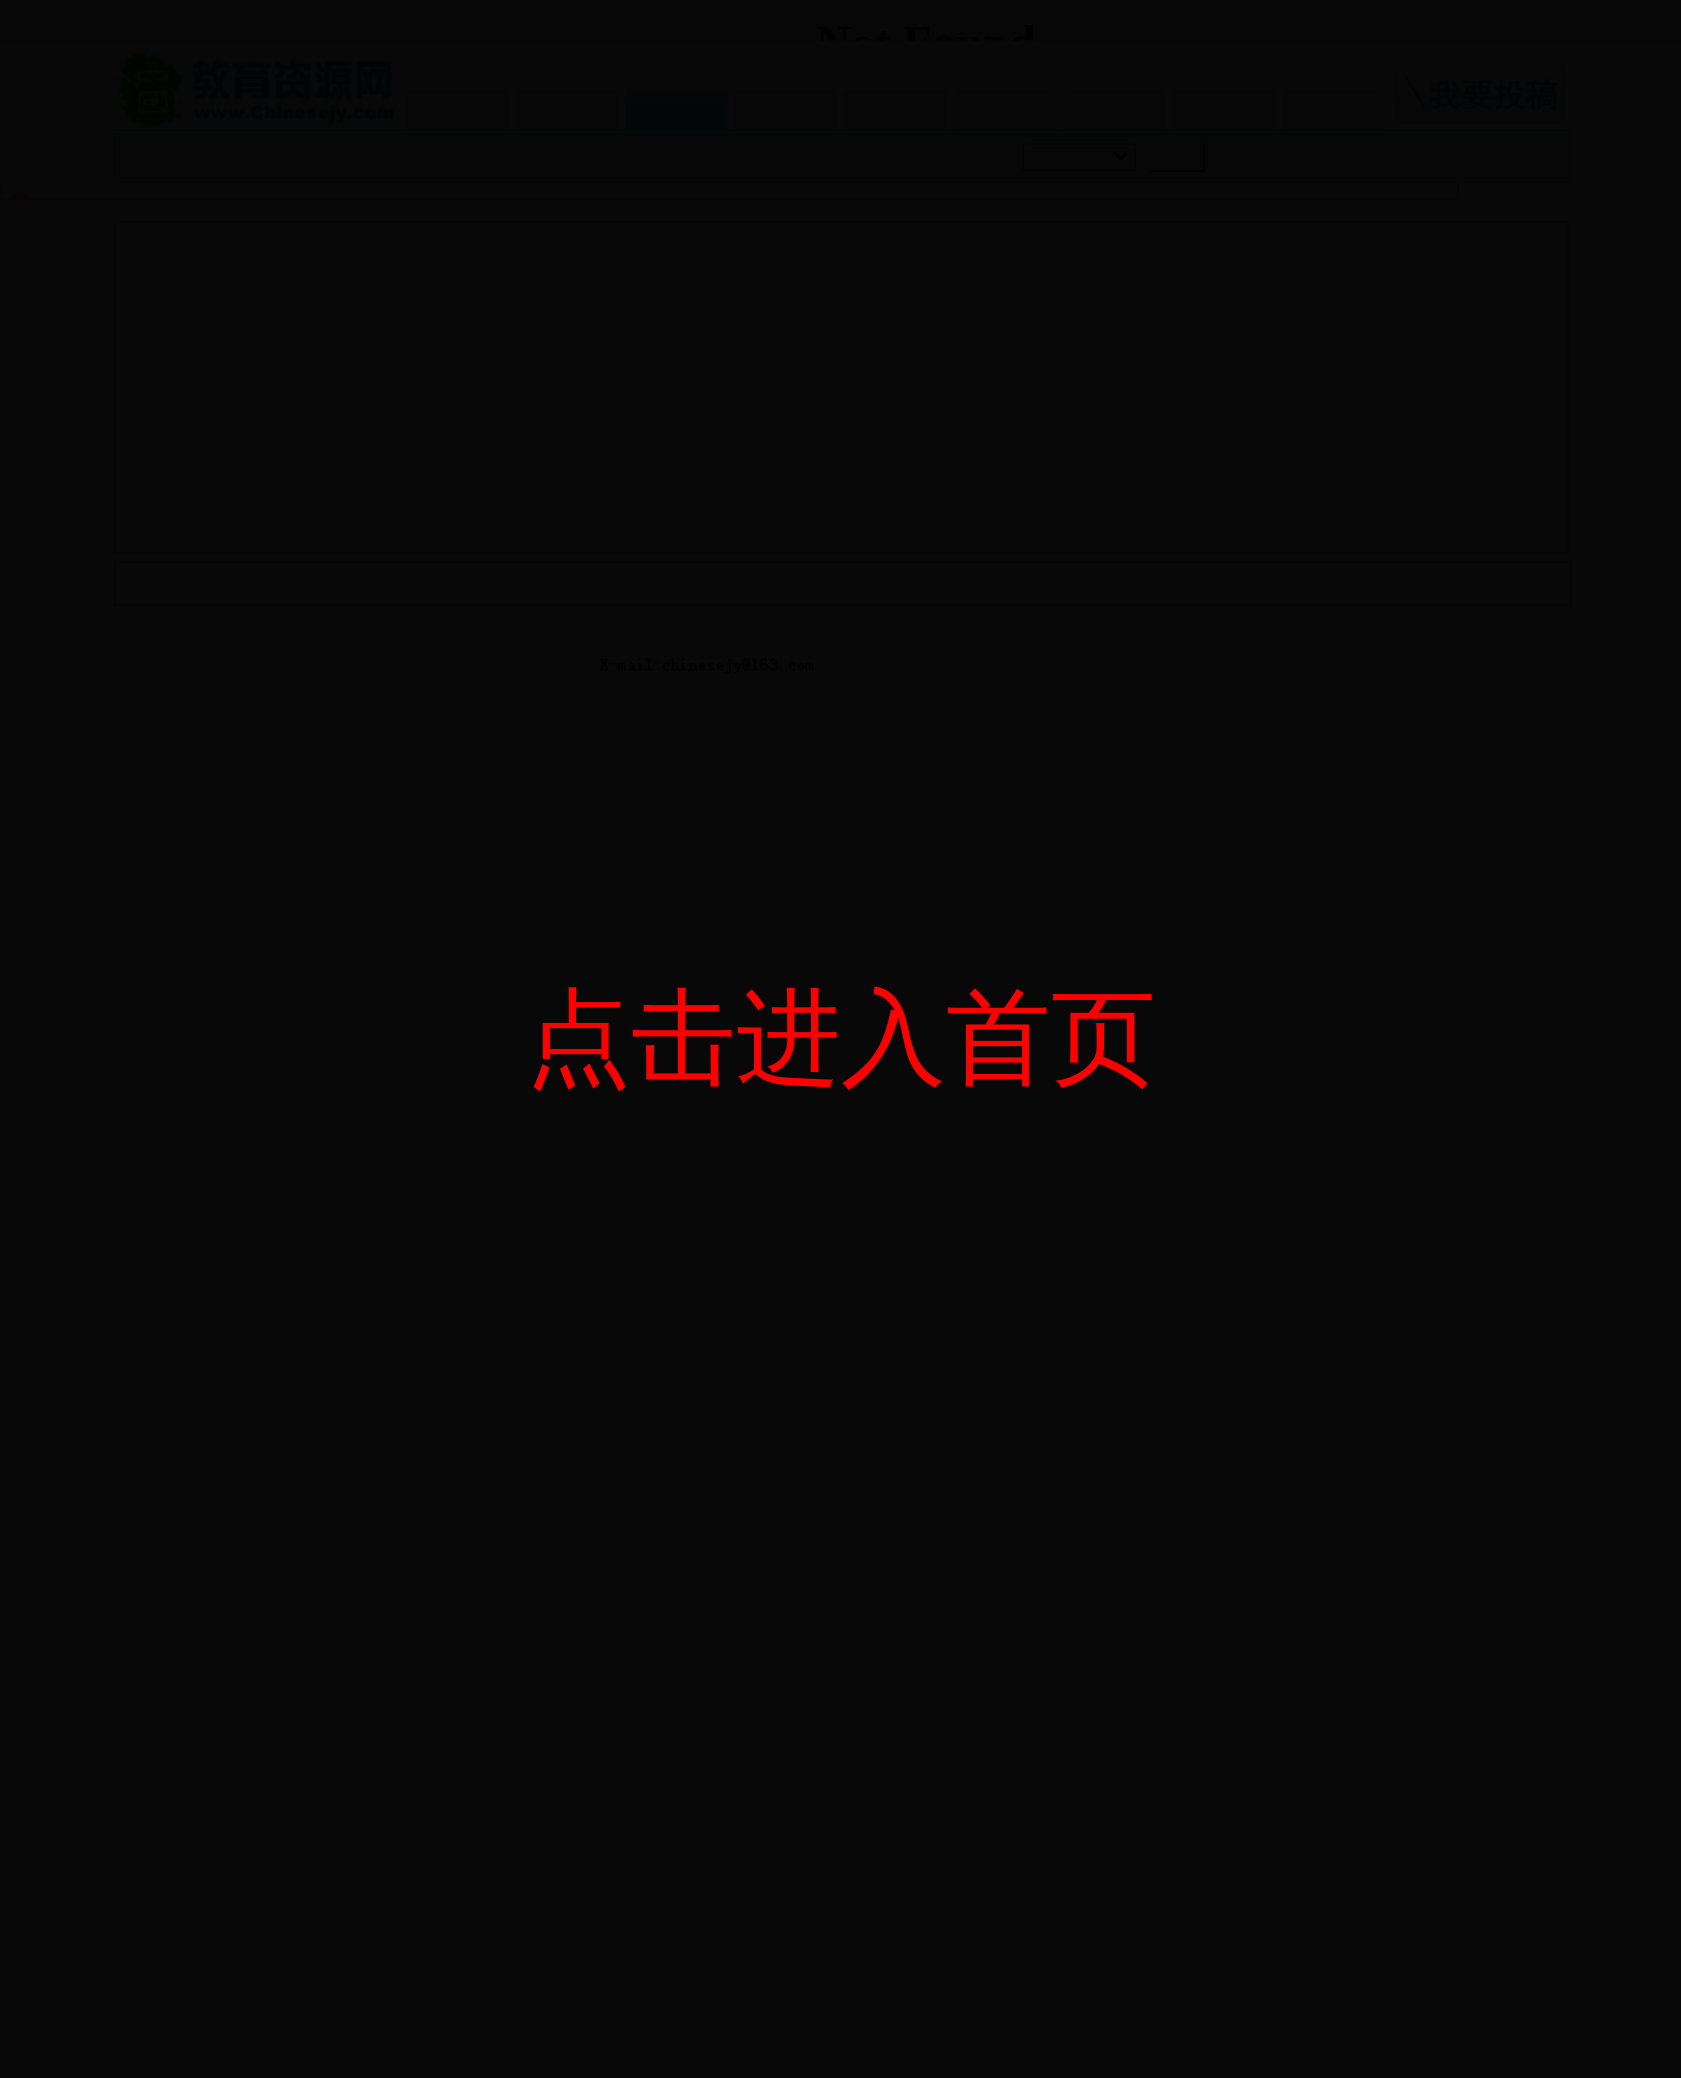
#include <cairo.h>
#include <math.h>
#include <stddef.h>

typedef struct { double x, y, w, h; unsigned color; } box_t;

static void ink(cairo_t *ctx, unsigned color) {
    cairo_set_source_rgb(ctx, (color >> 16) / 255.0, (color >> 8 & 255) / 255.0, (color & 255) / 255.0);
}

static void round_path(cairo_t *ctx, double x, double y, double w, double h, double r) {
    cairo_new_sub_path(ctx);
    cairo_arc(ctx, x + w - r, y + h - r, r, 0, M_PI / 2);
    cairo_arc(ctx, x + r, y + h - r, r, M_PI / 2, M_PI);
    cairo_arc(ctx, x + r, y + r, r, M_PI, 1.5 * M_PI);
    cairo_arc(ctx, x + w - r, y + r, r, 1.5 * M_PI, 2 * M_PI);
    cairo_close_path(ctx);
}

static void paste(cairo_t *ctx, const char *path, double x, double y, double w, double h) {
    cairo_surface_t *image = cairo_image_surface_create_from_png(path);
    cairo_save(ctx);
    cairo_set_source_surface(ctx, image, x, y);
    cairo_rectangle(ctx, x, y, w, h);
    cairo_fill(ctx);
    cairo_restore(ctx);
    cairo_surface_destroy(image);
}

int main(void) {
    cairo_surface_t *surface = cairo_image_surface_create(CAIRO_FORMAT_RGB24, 1681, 2078);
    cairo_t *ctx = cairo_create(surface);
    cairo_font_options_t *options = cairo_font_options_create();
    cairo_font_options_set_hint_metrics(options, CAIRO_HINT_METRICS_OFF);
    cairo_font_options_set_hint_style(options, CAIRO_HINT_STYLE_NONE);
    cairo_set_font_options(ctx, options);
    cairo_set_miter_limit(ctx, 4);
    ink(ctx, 0x080808);
    cairo_paint(ctx);
    paste(ctx, "media/1.png", 0, 0, 1681, 42);
    paste(ctx, "media/2.png", 816, 25, 217, 16);
    paste(ctx, "media/3.png", 116, 51, 279, 78);
    paste(ctx, "media/4.png", 406, 91, 103, 38);
    paste(ctx, "media/5.png", 516, 91, 102, 38);
    paste(ctx, "media/6.png", 625, 91, 103, 38);
    paste(ctx, "media/7.png", 735, 91, 102, 38);
    paste(ctx, "media/4.png", 844, 91, 103, 38);
    paste(ctx, "media/5.png", 954, 91, 102, 38);
    paste(ctx, "media/4.png", 1063, 91, 103, 38);
    paste(ctx, "media/7.png", 1173, 91, 102, 38);
    paste(ctx, "media/4.png", 1282, 91, 103, 38);
    paste(ctx, "media/8.png", 1394, 61, 171, 63);
    paste(ctx, "media/9.png", 112, 129, 1457, 54);
    cairo_rectangle(ctx, 114, 130, 1456, 52);
    ink(ctx, 0x050607);
    cairo_stroke(ctx);
    round_path(ctx, 1023, 144, 112, 26, 2);
    ink(ctx, 0x040404);
    cairo_stroke(ctx);
    cairo_new_path(ctx);
    cairo_move_to(ctx, 1115, 153);
    cairo_line_to(ctx, 1121, 159);
    cairo_line_to(ctx, 1127, 153);
    ink(ctx, 0x000000);
    cairo_set_line_width(ctx, 3);
    cairo_stroke(ctx);
    {
        static const box_t items[] = {
            {1203, 143, 2, 28, 0x020202},
            {1149, 170, 56, 2, 0x020202},
            {1149, 170, 2, 1, 0x080808},
        };
        for (size_t i = 0; i < sizeof items / sizeof *items; i++) {
            ink(ctx, items[i].color);
            cairo_rectangle(ctx, items[i].x, items[i].y, items[i].w, items[i].h);
            cairo_fill(ctx);
        }
    }
    paste(ctx, "media/10.png", 10, 192, 20, 6);
    {
        static const box_t items[] = {
            {1457, 183, 2, 17, 0x050607},
            {0, 198, 1458, 2, 0x050607},
            {0, 183, 2, 17, 0x050607},
        };
        for (size_t i = 0; i < sizeof items / sizeof *items; i++) {
            ink(ctx, items[i].color);
            cairo_rectangle(ctx, items[i].x, items[i].y, items[i].w, items[i].h);
            cairo_fill(ctx);
        }
    }
    cairo_rectangle(ctx, 115, 222, 1453, 331);
    cairo_set_line_width(ctx, 2);
    cairo_stroke(ctx);
    cairo_rectangle(ctx, 115, 562, 1456, 43);
    cairo_stroke(ctx);
    paste(ctx, "media/11.png", 599, 658, 215, 16);
    cairo_select_font_face(ctx, "WenQuanYi Zen Hei Medium", CAIRO_FONT_SLANT_NORMAL, CAIRO_FONT_WEIGHT_NORMAL);
    cairo_set_font_size(ctx, 105);
    ink(ctx, 0xFF0000);
    cairo_move_to(ctx, 526, 1074);
    cairo_show_text(ctx, "点击进入首页");
    cairo_surface_write_to_png(surface, "image.png");
    cairo_font_options_destroy(options);
    cairo_destroy(ctx);
    cairo_surface_destroy(surface);
    return 0;
}
